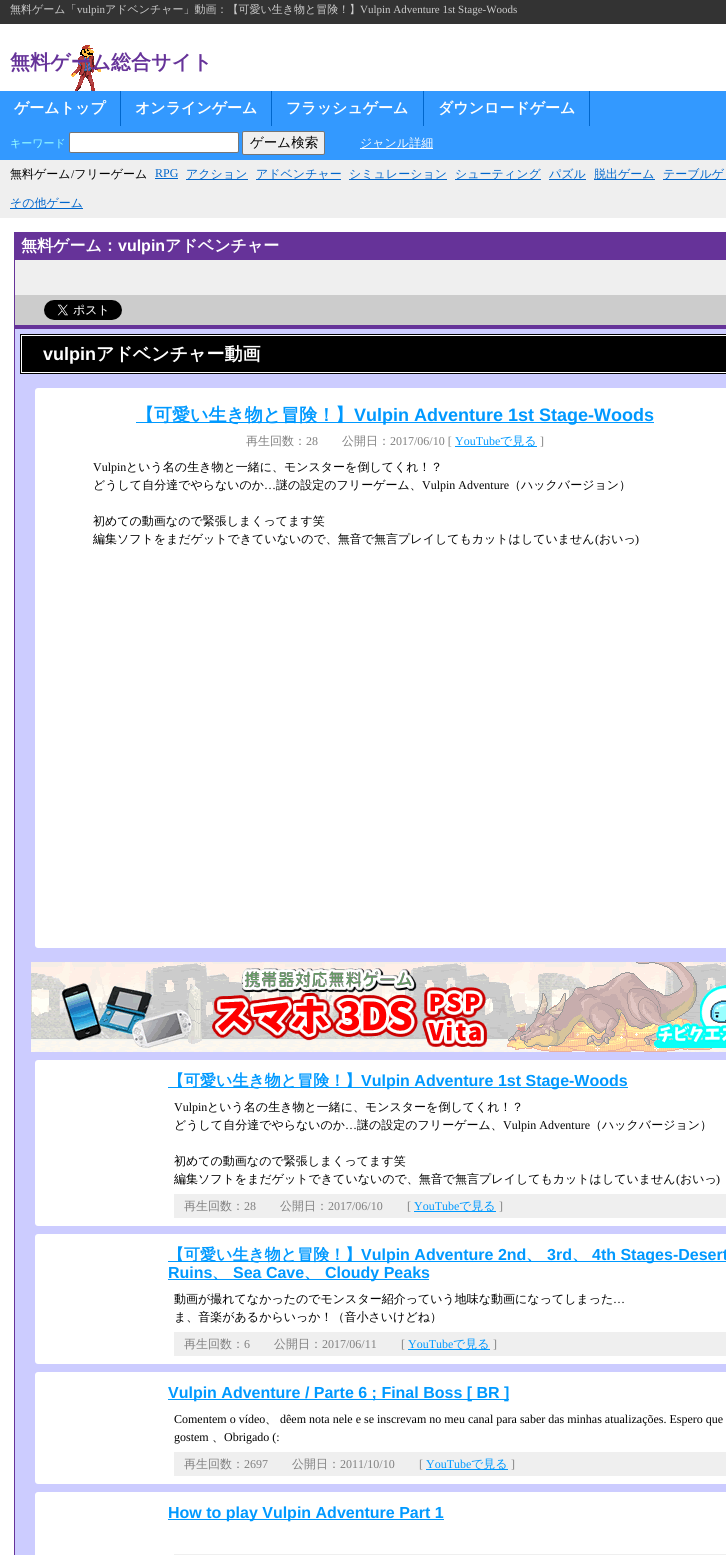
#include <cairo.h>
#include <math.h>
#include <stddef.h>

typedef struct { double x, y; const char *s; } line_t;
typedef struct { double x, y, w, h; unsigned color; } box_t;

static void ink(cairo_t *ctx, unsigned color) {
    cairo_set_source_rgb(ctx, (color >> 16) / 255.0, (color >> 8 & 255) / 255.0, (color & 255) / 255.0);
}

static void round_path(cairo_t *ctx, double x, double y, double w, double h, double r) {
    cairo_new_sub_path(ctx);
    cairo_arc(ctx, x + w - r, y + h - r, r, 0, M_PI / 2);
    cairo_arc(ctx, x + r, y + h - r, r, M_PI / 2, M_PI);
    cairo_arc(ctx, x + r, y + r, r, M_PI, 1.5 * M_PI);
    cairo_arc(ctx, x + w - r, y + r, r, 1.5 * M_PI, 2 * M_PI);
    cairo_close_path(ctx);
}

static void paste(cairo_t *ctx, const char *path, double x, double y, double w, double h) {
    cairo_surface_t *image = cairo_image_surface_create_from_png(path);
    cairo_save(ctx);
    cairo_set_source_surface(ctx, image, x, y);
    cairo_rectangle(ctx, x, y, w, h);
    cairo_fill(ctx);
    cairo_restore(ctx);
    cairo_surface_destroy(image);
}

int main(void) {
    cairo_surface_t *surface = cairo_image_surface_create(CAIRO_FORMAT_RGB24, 726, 1555);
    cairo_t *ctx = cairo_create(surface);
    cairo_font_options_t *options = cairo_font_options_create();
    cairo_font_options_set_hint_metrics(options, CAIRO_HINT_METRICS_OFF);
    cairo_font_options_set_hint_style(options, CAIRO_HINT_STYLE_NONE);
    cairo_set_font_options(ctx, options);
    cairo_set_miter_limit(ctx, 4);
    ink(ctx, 0xFFFFFF);
    cairo_paint(ctx);
    ink(ctx, 0x333333);
    cairo_rectangle(ctx, 0, 0, 726, 24);
    cairo_fill(ctx);
    cairo_select_font_face(ctx, "WenQuanYi Zen Hei Medium", CAIRO_FONT_SLANT_NORMAL, CAIRO_FONT_WEIGHT_NORMAL);
    cairo_set_font_size(ctx, 11);
    ink(ctx, 0xCCCCCC);
    cairo_move_to(ctx, 10, 13);
    cairo_show_text(ctx, "無料ゲーム「");
    cairo_select_font_face(ctx, "Liberation Serif", CAIRO_FONT_SLANT_NORMAL, CAIRO_FONT_WEIGHT_NORMAL);
    cairo_move_to(ctx, 77, 13);
    cairo_show_text(ctx, "vulpin");
    cairo_select_font_face(ctx, "WenQuanYi Zen Hei Medium", CAIRO_FONT_SLANT_NORMAL, CAIRO_FONT_WEIGHT_NORMAL);
    cairo_move_to(ctx, 105, 13);
    cairo_show_text(ctx, "アドベンチャー」動画：【可愛い生き物と冒険！】");
    cairo_select_font_face(ctx, "Liberation Serif", CAIRO_FONT_SLANT_NORMAL, CAIRO_FONT_WEIGHT_NORMAL);
    cairo_move_to(ctx, 360, 13);
    cairo_show_text(ctx, "Vulpin Adventure 1st Stage-Woods");
    paste(ctx, "media/1.png", 71, 45, 30, 46);
    cairo_select_font_face(ctx, "WenQuanYi Zen Hei", CAIRO_FONT_SLANT_NORMAL, CAIRO_FONT_WEIGHT_BOLD);
    cairo_set_font_size(ctx, 20);
    ink(ctx, 0x663399);
    cairo_move_to(ctx, 10, 69);
    cairo_show_text(ctx, "無料ゲーム総合サイト");
    ink(ctx, 0x3399FF);
    cairo_rectangle(ctx, 0, 91, 726, 69);
    cairo_fill(ctx);
    ink(ctx, 0x0066CC);
    cairo_rectangle(ctx, 120, 91, 1, 35);
    cairo_fill(ctx);
    cairo_set_font_size(ctx, 15);
    ink(ctx, 0xFFFFFF);
    cairo_move_to(ctx, 14, 113);
    cairo_show_text(ctx, "ゲームトップ");
    ink(ctx, 0x0066CC);
    cairo_rectangle(ctx, 271, 91, 1, 35);
    cairo_fill(ctx);
    ink(ctx, 0xFFFFFF);
    cairo_move_to(ctx, 135, 113);
    cairo_show_text(ctx, "オンラインゲーム");
    ink(ctx, 0x0066CC);
    cairo_rectangle(ctx, 423, 91, 1, 35);
    cairo_fill(ctx);
    ink(ctx, 0xFFFFFF);
    cairo_move_to(ctx, 286, 113);
    cairo_show_text(ctx, "フラッシュゲーム");
    ink(ctx, 0x0066CC);
    cairo_rectangle(ctx, 589, 91, 1, 35);
    cairo_fill(ctx);
    ink(ctx, 0xFFFFFF);
    cairo_move_to(ctx, 438, 113);
    cairo_show_text(ctx, "ダウンロードゲーム");
    cairo_select_font_face(ctx, "WenQuanYi Zen Hei Medium", CAIRO_FONT_SLANT_NORMAL, CAIRO_FONT_WEIGHT_NORMAL);
    cairo_set_font_size(ctx, 11);
    ink(ctx, 0x99FFFF);
    cairo_move_to(ctx, 10, 147);
    cairo_show_text(ctx, "キーワード");
    ink(ctx, 0xFFFFFF);
    round_path(ctx, 69.5, 132.5, 169, 20, 1.5);
    cairo_fill_preserve(ctx);
    ink(ctx, 0x767676);
    cairo_set_line_width(ctx, 1);
    cairo_stroke(ctx);
    ink(ctx, 0xEFEFEF);
    round_path(ctx, 242.5, 131.5, 82, 23, 1.5);
    cairo_fill_preserve(ctx);
    ink(ctx, 0x767676);
    cairo_stroke(ctx);
    cairo_set_font_size(ctx, 13.5);
    ink(ctx, 0x000000);
    cairo_move_to(ctx, 250, 147);
    cairo_show_text(ctx, "ゲーム検索");
    ink(ctx, 0xFFFFFF);
    cairo_rectangle(ctx, 360, 148, 73, 1);
    cairo_fill(ctx);
    cairo_set_font_size(ctx, 12);
    cairo_move_to(ctx, 360, 147);
    cairo_show_text(ctx, "ジャンル詳細");
    ink(ctx, 0xEFEFEF);
    cairo_rectangle(ctx, 0, 160, 726, 58);
    cairo_fill(ctx);
    ink(ctx, 0x000000);
    cairo_move_to(ctx, 10, 178);
    cairo_show_text(ctx, "無料ゲーム フリーゲーム");
    cairo_select_font_face(ctx, "Liberation Serif", CAIRO_FONT_SLANT_NORMAL, CAIRO_FONT_WEIGHT_NORMAL);
    cairo_move_to(ctx, 71, 178);
    cairo_show_text(ctx, "/");
    ink(ctx, 0x0066CC);
    cairo_move_to(ctx, 155, 177);
    cairo_show_text(ctx, "RPG");
    cairo_rectangle(ctx, 155, 178, 23, 1);
    cairo_fill(ctx);
    cairo_rectangle(ctx, 186, 179, 62, 1);
    cairo_fill(ctx);
    cairo_select_font_face(ctx, "WenQuanYi Zen Hei Medium", CAIRO_FONT_SLANT_NORMAL, CAIRO_FONT_WEIGHT_NORMAL);
    cairo_move_to(ctx, 186, 178);
    cairo_show_text(ctx, "アクション");
    cairo_rectangle(ctx, 256, 179, 85, 1);
    cairo_fill(ctx);
    cairo_move_to(ctx, 256, 178);
    cairo_show_text(ctx, "アドベンチャー");
    cairo_rectangle(ctx, 349, 179, 98, 1);
    cairo_fill(ctx);
    cairo_move_to(ctx, 349, 178);
    cairo_show_text(ctx, "シミュレーション");
    cairo_rectangle(ctx, 455, 179, 86, 1);
    cairo_fill(ctx);
    cairo_move_to(ctx, 455, 178);
    cairo_show_text(ctx, "シューティング");
    cairo_move_to(ctx, 549, 178);
    cairo_show_text(ctx, "パズル");
    cairo_rectangle(ctx, 549, 179, 37, 1);
    cairo_fill(ctx);
    cairo_rectangle(ctx, 594, 179, 61, 1);
    cairo_fill(ctx);
    cairo_move_to(ctx, 594, 178);
    cairo_show_text(ctx, "脱出ゲーム");
    cairo_rectangle(ctx, 663, 179, 63, 1);
    cairo_fill(ctx);
    cairo_move_to(ctx, 663, 178);
    cairo_show_text(ctx, "テーブルゲ");
    cairo_rectangle(ctx, 10, 208, 73, 1);
    cairo_fill(ctx);
    cairo_move_to(ctx, 10, 207);
    cairo_show_text(ctx, "その他ゲーム");
    ink(ctx, 0xEFEFEF);
    cairo_rectangle(ctx, 15, 260, 711, 35);
    cairo_fill(ctx);
    cairo_rectangle(ctx, 14.5, 232.5, 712, 93);
    ink(ctx, 0x663399);
    cairo_stroke(ctx);
    cairo_rectangle(ctx, 15, 233, 711, 27);
    cairo_fill(ctx);
    cairo_select_font_face(ctx, "WenQuanYi Zen Hei", CAIRO_FONT_SLANT_NORMAL, CAIRO_FONT_WEIGHT_BOLD);
    cairo_set_font_size(ctx, 16);
    ink(ctx, 0xFFFFFF);
    cairo_move_to(ctx, 21, 251);
    cairo_show_text(ctx, "無料ゲーム：");
    cairo_select_font_face(ctx, "Liberation Sans", CAIRO_FONT_SLANT_NORMAL, CAIRO_FONT_WEIGHT_BOLD);
    cairo_move_to(ctx, 118, 251);
    cairo_show_text(ctx, "vulpin");
    cairo_select_font_face(ctx, "WenQuanYi Zen Hei", CAIRO_FONT_SLANT_NORMAL, CAIRO_FONT_WEIGHT_BOLD);
    cairo_move_to(ctx, 165, 251);
    cairo_show_text(ctx, "アドベンチャー");
    ink(ctx, 0xCCCCCC);
    cairo_rectangle(ctx, 15, 295, 711, 30);
    cairo_fill(ctx);
    paste(ctx, "media/2.png", 44, 300, 78, 20);
    {
        static const box_t items[] = {
            {15, 329, 711, 1226, 0xCCCCFF},
            {14, 326, 712, 3, 0x663399},
            {14, 326, 1, 1229, 0x663399},
        };
        for (size_t i = 0; i < sizeof items / sizeof *items; i++) {
            ink(ctx, items[i].color);
            cairo_rectangle(ctx, items[i].x, items[i].y, items[i].w, items[i].h);
            cairo_fill(ctx);
        }
    }
    ink(ctx, 0xFFFFFF);
    cairo_rectangle(ctx, 20.5, 334.5, 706, 39);
    cairo_fill_preserve(ctx);
    ink(ctx, 0x000000);
    cairo_stroke(ctx);
    cairo_rectangle(ctx, 22.5, 336.5, 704, 35);
    cairo_stroke(ctx);
    cairo_rectangle(ctx, 23, 337, 703, 34);
    cairo_fill(ctx);
    cairo_select_font_face(ctx, "Liberation Sans", CAIRO_FONT_SLANT_NORMAL, CAIRO_FONT_WEIGHT_BOLD);
    cairo_set_font_size(ctx, 18);
    ink(ctx, 0xFFFFFF);
    cairo_move_to(ctx, 43, 360);
    cairo_show_text(ctx, "vulpin");
    cairo_select_font_face(ctx, "WenQuanYi Zen Hei", CAIRO_FONT_SLANT_NORMAL, CAIRO_FONT_WEIGHT_BOLD);
    cairo_move_to(ctx, 96, 360);
    cairo_show_text(ctx, "アドベンチャー動画");
    round_path(ctx, 35, 388, 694, 560, 3);
    cairo_fill(ctx);
    ink(ctx, 0x0099FF);
    cairo_rectangle(ctx, 136, 422, 518, 1);
    cairo_fill(ctx);
    cairo_move_to(ctx, 136, 421);
    cairo_show_text(ctx, "【可愛い生き物と冒険！】");
    cairo_select_font_face(ctx, "Liberation Sans", CAIRO_FONT_SLANT_NORMAL, CAIRO_FONT_WEIGHT_BOLD);
    cairo_move_to(ctx, 354, 421);
    cairo_show_text(ctx, "Vulpin Adventure 1st Stage-Woods");
    cairo_select_font_face(ctx, "WenQuanYi Zen Hei Medium", CAIRO_FONT_SLANT_NORMAL, CAIRO_FONT_WEIGHT_NORMAL);
    cairo_set_font_size(ctx, 12);
    ink(ctx, 0x808080);
    cairo_move_to(ctx, 246, 445);
    cairo_show_text(ctx, "再生回数：");
    cairo_select_font_face(ctx, "Liberation Serif", CAIRO_FONT_SLANT_NORMAL, CAIRO_FONT_WEIGHT_NORMAL);
    cairo_move_to(ctx, 306, 445);
    cairo_show_text(ctx, "28");
    cairo_select_font_face(ctx, "WenQuanYi Zen Hei Medium", CAIRO_FONT_SLANT_NORMAL, CAIRO_FONT_WEIGHT_NORMAL);
    cairo_move_to(ctx, 342, 445);
    cairo_show_text(ctx, "公開日：");
    cairo_select_font_face(ctx, "Liberation Serif", CAIRO_FONT_SLANT_NORMAL, CAIRO_FONT_WEIGHT_NORMAL);
    cairo_move_to(ctx, 390, 445);
    cairo_show_text(ctx, "2017/06/10 [");
    ink(ctx, 0x0099FF);
    cairo_move_to(ctx, 455, 445);
    cairo_show_text(ctx, "YouTube");
    cairo_rectangle(ctx, 455, 446, 82, 1);
    cairo_fill(ctx);
    cairo_select_font_face(ctx, "WenQuanYi Zen Hei Medium", CAIRO_FONT_SLANT_NORMAL, CAIRO_FONT_WEIGHT_NORMAL);
    cairo_move_to(ctx, 500, 445);
    cairo_show_text(ctx, "で見る");
    cairo_select_font_face(ctx, "Liberation Serif", CAIRO_FONT_SLANT_NORMAL, CAIRO_FONT_WEIGHT_NORMAL);
    ink(ctx, 0x808080);
    cairo_move_to(ctx, 540, 445);
    cairo_show_text(ctx, "]");
    ink(ctx, 0x000000);
    cairo_move_to(ctx, 93, 471);
    cairo_show_text(ctx, "Vulpin");
    cairo_select_font_face(ctx, "WenQuanYi Zen Hei Medium", CAIRO_FONT_SLANT_NORMAL, CAIRO_FONT_WEIGHT_NORMAL);
    cairo_move_to(ctx, 126, 471);
    cairo_show_text(ctx, "という名の生き物と一緒に、モンスターを倒してくれ！？");
    cairo_move_to(ctx, 93, 489);
    cairo_show_text(ctx, "どうして自分達でやらないのか");
    cairo_select_font_face(ctx, "Liberation Serif", CAIRO_FONT_SLANT_NORMAL, CAIRO_FONT_WEIGHT_NORMAL);
    cairo_move_to(ctx, 264, 489);
    cairo_show_text(ctx, "…");
    cairo_select_font_face(ctx, "WenQuanYi Zen Hei Medium", CAIRO_FONT_SLANT_NORMAL, CAIRO_FONT_WEIGHT_NORMAL);
    cairo_move_to(ctx, 276, 489);
    cairo_show_text(ctx, "謎の設定のフリーゲーム、");
    cairo_select_font_face(ctx, "Liberation Serif", CAIRO_FONT_SLANT_NORMAL, CAIRO_FONT_WEIGHT_NORMAL);
    cairo_move_to(ctx, 422, 489);
    cairo_show_text(ctx, "Vulpin Adventure");
    cairo_select_font_face(ctx, "WenQuanYi Zen Hei Medium", CAIRO_FONT_SLANT_NORMAL, CAIRO_FONT_WEIGHT_NORMAL);
    {
        static const line_t items[] = {
            {509, 489, "（ハックバージョン）"},
            {93, 525, "初めての動画なので緊張しまくってます笑"},
            {93, 543, "編集ソフトをまだゲットできていないので、無音で無言プレイしてもカットはしていません"},
        };
        for (size_t i = 0; i < sizeof items / sizeof *items; i++) {
            cairo_move_to(ctx, items[i].x, items[i].y);
            cairo_show_text(ctx, items[i].s);
        }
    }
    cairo_select_font_face(ctx, "Liberation Serif", CAIRO_FONT_SLANT_NORMAL, CAIRO_FONT_WEIGHT_NORMAL);
    cairo_move_to(ctx, 595, 543);
    cairo_show_text(ctx, "(");
    cairo_select_font_face(ctx, "WenQuanYi Zen Hei Medium", CAIRO_FONT_SLANT_NORMAL, CAIRO_FONT_WEIGHT_NORMAL);
    cairo_move_to(ctx, 599, 543);
    cairo_show_text(ctx, "おいっ");
    cairo_select_font_face(ctx, "Liberation Serif", CAIRO_FONT_SLANT_NORMAL, CAIRO_FONT_WEIGHT_NORMAL);
    cairo_move_to(ctx, 635, 543);
    cairo_show_text(ctx, ")");
    paste(ctx, "media/3.png", 31, 962, 695, 90);
    ink(ctx, 0xFFFFFF);
    round_path(ctx, 35, 1060, 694, 166, 3);
    cairo_fill(ctx);
    ink(ctx, 0x0099FF);
    cairo_rectangle(ctx, 168, 1087, 460, 1);
    cairo_fill(ctx);
    cairo_select_font_face(ctx, "WenQuanYi Zen Hei", CAIRO_FONT_SLANT_NORMAL, CAIRO_FONT_WEIGHT_BOLD);
    cairo_set_font_size(ctx, 16);
    cairo_move_to(ctx, 168, 1086);
    cairo_show_text(ctx, "【可愛い生き物と冒険！】");
    cairo_select_font_face(ctx, "Liberation Sans", CAIRO_FONT_SLANT_NORMAL, CAIRO_FONT_WEIGHT_BOLD);
    cairo_move_to(ctx, 361, 1086);
    cairo_show_text(ctx, "Vulpin Adventure 1st Stage-Woods");
    cairo_select_font_face(ctx, "Liberation Serif", CAIRO_FONT_SLANT_NORMAL, CAIRO_FONT_WEIGHT_NORMAL);
    cairo_set_font_size(ctx, 12);
    ink(ctx, 0x000000);
    cairo_move_to(ctx, 174, 1111);
    cairo_show_text(ctx, "Vulpin");
    cairo_select_font_face(ctx, "WenQuanYi Zen Hei Medium", CAIRO_FONT_SLANT_NORMAL, CAIRO_FONT_WEIGHT_NORMAL);
    cairo_move_to(ctx, 207, 1111);
    cairo_show_text(ctx, "という名の生き物と一緒に、モンスターを倒してくれ！？");
    cairo_move_to(ctx, 174, 1129);
    cairo_show_text(ctx, "どうして自分達でやらないのか");
    cairo_select_font_face(ctx, "Liberation Serif", CAIRO_FONT_SLANT_NORMAL, CAIRO_FONT_WEIGHT_NORMAL);
    cairo_move_to(ctx, 345, 1129);
    cairo_show_text(ctx, "…");
    cairo_select_font_face(ctx, "WenQuanYi Zen Hei Medium", CAIRO_FONT_SLANT_NORMAL, CAIRO_FONT_WEIGHT_NORMAL);
    cairo_move_to(ctx, 357, 1129);
    cairo_show_text(ctx, "謎の設定のフリーゲーム、");
    cairo_select_font_face(ctx, "Liberation Serif", CAIRO_FONT_SLANT_NORMAL, CAIRO_FONT_WEIGHT_NORMAL);
    cairo_move_to(ctx, 503, 1129);
    cairo_show_text(ctx, "Vulpin Adventure");
    cairo_select_font_face(ctx, "WenQuanYi Zen Hei Medium", CAIRO_FONT_SLANT_NORMAL, CAIRO_FONT_WEIGHT_NORMAL);
    {
        static const line_t items[] = {
            {590, 1129, "（ハックバージョン）"},
            {174, 1165, "初めての動画なので緊張しまくってます笑"},
            {174, 1183, "編集ソフトをまだゲットできていないので、無音で無言プレイしてもカットはしていません"},
        };
        for (size_t i = 0; i < sizeof items / sizeof *items; i++) {
            cairo_move_to(ctx, items[i].x, items[i].y);
            cairo_show_text(ctx, items[i].s);
        }
    }
    cairo_select_font_face(ctx, "Liberation Serif", CAIRO_FONT_SLANT_NORMAL, CAIRO_FONT_WEIGHT_NORMAL);
    cairo_move_to(ctx, 676, 1183);
    cairo_show_text(ctx, "(");
    cairo_select_font_face(ctx, "WenQuanYi Zen Hei Medium", CAIRO_FONT_SLANT_NORMAL, CAIRO_FONT_WEIGHT_NORMAL);
    cairo_move_to(ctx, 680, 1183);
    cairo_show_text(ctx, "おいっ");
    cairo_select_font_face(ctx, "Liberation Serif", CAIRO_FONT_SLANT_NORMAL, CAIRO_FONT_WEIGHT_NORMAL);
    cairo_move_to(ctx, 716, 1183);
    cairo_show_text(ctx, ")");
    ink(ctx, 0xEFEFEF);
    cairo_rectangle(ctx, 174, 1194, 552, 24);
    cairo_fill(ctx);
    cairo_select_font_face(ctx, "WenQuanYi Zen Hei Medium", CAIRO_FONT_SLANT_NORMAL, CAIRO_FONT_WEIGHT_NORMAL);
    ink(ctx, 0x808080);
    cairo_move_to(ctx, 184, 1210);
    cairo_show_text(ctx, "再生回数：");
    cairo_select_font_face(ctx, "Liberation Serif", CAIRO_FONT_SLANT_NORMAL, CAIRO_FONT_WEIGHT_NORMAL);
    cairo_move_to(ctx, 244, 1210);
    cairo_show_text(ctx, "28");
    cairo_select_font_face(ctx, "WenQuanYi Zen Hei Medium", CAIRO_FONT_SLANT_NORMAL, CAIRO_FONT_WEIGHT_NORMAL);
    cairo_move_to(ctx, 280, 1210);
    cairo_show_text(ctx, "公開日：");
    cairo_select_font_face(ctx, "Liberation Serif", CAIRO_FONT_SLANT_NORMAL, CAIRO_FONT_WEIGHT_NORMAL);
    cairo_move_to(ctx, 328, 1210);
    cairo_show_text(ctx, "2017/06/10");
    cairo_move_to(ctx, 407, 1210);
    cairo_show_text(ctx, "[");
    ink(ctx, 0x0099FF);
    cairo_move_to(ctx, 414, 1210);
    cairo_show_text(ctx, "YouTube");
    cairo_rectangle(ctx, 414, 1211, 82, 1);
    cairo_fill(ctx);
    cairo_select_font_face(ctx, "WenQuanYi Zen Hei Medium", CAIRO_FONT_SLANT_NORMAL, CAIRO_FONT_WEIGHT_NORMAL);
    cairo_move_to(ctx, 459, 1210);
    cairo_show_text(ctx, "で見る");
    cairo_select_font_face(ctx, "Liberation Serif", CAIRO_FONT_SLANT_NORMAL, CAIRO_FONT_WEIGHT_NORMAL);
    ink(ctx, 0x808080);
    cairo_move_to(ctx, 499, 1210);
    cairo_show_text(ctx, "]");
    ink(ctx, 0xFFFFFF);
    round_path(ctx, 35, 1234, 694, 130, 3);
    cairo_fill(ctx);
    ink(ctx, 0x0099FF);
    cairo_rectangle(ctx, 168, 1261, 558, 1);
    cairo_fill(ctx);
    cairo_select_font_face(ctx, "WenQuanYi Zen Hei", CAIRO_FONT_SLANT_NORMAL, CAIRO_FONT_WEIGHT_BOLD);
    cairo_set_font_size(ctx, 16);
    cairo_move_to(ctx, 168, 1260);
    cairo_show_text(ctx, "【可愛い生き物と冒険！】");
    cairo_select_font_face(ctx, "Liberation Sans", CAIRO_FONT_SLANT_NORMAL, CAIRO_FONT_WEIGHT_BOLD);
    cairo_move_to(ctx, 361, 1260);
    cairo_show_text(ctx, "Vulpin Adventure 2nd");
    cairo_select_font_face(ctx, "WenQuanYi Zen Hei", CAIRO_FONT_SLANT_NORMAL, CAIRO_FONT_WEIGHT_BOLD);
    cairo_move_to(ctx, 526, 1260);
    cairo_show_text(ctx, "、");
    cairo_select_font_face(ctx, "Liberation Sans", CAIRO_FONT_SLANT_NORMAL, CAIRO_FONT_WEIGHT_BOLD);
    cairo_move_to(ctx, 547, 1260);
    cairo_show_text(ctx, "3rd");
    cairo_select_font_face(ctx, "WenQuanYi Zen Hei", CAIRO_FONT_SLANT_NORMAL, CAIRO_FONT_WEIGHT_BOLD);
    cairo_move_to(ctx, 572, 1260);
    cairo_show_text(ctx, "、");
    cairo_select_font_face(ctx, "Liberation Sans", CAIRO_FONT_SLANT_NORMAL, CAIRO_FONT_WEIGHT_BOLD);
    cairo_move_to(ctx, 592, 1260);
    cairo_show_text(ctx, "4th Stages-Desert");
    cairo_move_to(ctx, 168, 1278);
    cairo_show_text(ctx, "Ruins");
    cairo_rectangle(ctx, 168, 1279, 261, 1);
    cairo_fill(ctx);
    cairo_select_font_face(ctx, "WenQuanYi Zen Hei", CAIRO_FONT_SLANT_NORMAL, CAIRO_FONT_WEIGHT_BOLD);
    cairo_move_to(ctx, 212, 1278);
    cairo_show_text(ctx, "、");
    cairo_select_font_face(ctx, "Liberation Sans", CAIRO_FONT_SLANT_NORMAL, CAIRO_FONT_WEIGHT_BOLD);
    cairo_move_to(ctx, 233, 1278);
    cairo_show_text(ctx, "Sea Cave");
    cairo_select_font_face(ctx, "WenQuanYi Zen Hei", CAIRO_FONT_SLANT_NORMAL, CAIRO_FONT_WEIGHT_BOLD);
    cairo_move_to(ctx, 304, 1278);
    cairo_show_text(ctx, "、");
    cairo_select_font_face(ctx, "Liberation Sans", CAIRO_FONT_SLANT_NORMAL, CAIRO_FONT_WEIGHT_BOLD);
    cairo_move_to(ctx, 325, 1278);
    cairo_show_text(ctx, "Cloudy Peaks");
    cairo_select_font_face(ctx, "WenQuanYi Zen Hei Medium", CAIRO_FONT_SLANT_NORMAL, CAIRO_FONT_WEIGHT_NORMAL);
    cairo_set_font_size(ctx, 12);
    ink(ctx, 0x000000);
    cairo_move_to(ctx, 174, 1303);
    cairo_show_text(ctx, "動画が撮れてなかったのでモンスター紹介っていう地味な動画になってしまった");
    cairo_select_font_face(ctx, "Liberation Serif", CAIRO_FONT_SLANT_NORMAL, CAIRO_FONT_WEIGHT_NORMAL);
    cairo_move_to(ctx, 613, 1303);
    cairo_show_text(ctx, "…");
    cairo_select_font_face(ctx, "WenQuanYi Zen Hei Medium", CAIRO_FONT_SLANT_NORMAL, CAIRO_FONT_WEIGHT_NORMAL);
    cairo_move_to(ctx, 174, 1321);
    cairo_show_text(ctx, "ま、音楽があるからいっか！（音小さいけどね）");
    ink(ctx, 0xEFEFEF);
    cairo_rectangle(ctx, 174, 1332, 552, 24);
    cairo_fill(ctx);
    ink(ctx, 0x808080);
    cairo_move_to(ctx, 184, 1348);
    cairo_show_text(ctx, "再生回数：");
    cairo_select_font_face(ctx, "Liberation Serif", CAIRO_FONT_SLANT_NORMAL, CAIRO_FONT_WEIGHT_NORMAL);
    cairo_move_to(ctx, 244, 1348);
    cairo_show_text(ctx, "6");
    cairo_select_font_face(ctx, "WenQuanYi Zen Hei Medium", CAIRO_FONT_SLANT_NORMAL, CAIRO_FONT_WEIGHT_NORMAL);
    cairo_move_to(ctx, 274, 1348);
    cairo_show_text(ctx, "公開日：");
    cairo_select_font_face(ctx, "Liberation Serif", CAIRO_FONT_SLANT_NORMAL, CAIRO_FONT_WEIGHT_NORMAL);
    cairo_move_to(ctx, 322, 1348);
    cairo_show_text(ctx, "2017/06/11");
    cairo_move_to(ctx, 401, 1348);
    cairo_show_text(ctx, "[");
    ink(ctx, 0x0099FF);
    cairo_move_to(ctx, 408, 1348);
    cairo_show_text(ctx, "YouTube");
    cairo_rectangle(ctx, 408, 1349, 82, 1);
    cairo_fill(ctx);
    cairo_select_font_face(ctx, "WenQuanYi Zen Hei Medium", CAIRO_FONT_SLANT_NORMAL, CAIRO_FONT_WEIGHT_NORMAL);
    cairo_move_to(ctx, 453, 1348);
    cairo_show_text(ctx, "で見る");
    cairo_select_font_face(ctx, "Liberation Serif", CAIRO_FONT_SLANT_NORMAL, CAIRO_FONT_WEIGHT_NORMAL);
    ink(ctx, 0x808080);
    cairo_move_to(ctx, 493, 1348);
    cairo_show_text(ctx, "]");
    ink(ctx, 0xFFFFFF);
    round_path(ctx, 35, 1372, 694, 112, 3);
    cairo_fill(ctx);
    ink(ctx, 0x0099FF);
    cairo_rectangle(ctx, 168, 1399, 341, 1);
    cairo_fill(ctx);
    cairo_select_font_face(ctx, "Liberation Sans", CAIRO_FONT_SLANT_NORMAL, CAIRO_FONT_WEIGHT_BOLD);
    cairo_set_font_size(ctx, 16);
    cairo_move_to(ctx, 168, 1398);
    cairo_show_text(ctx, "Vulpin Adventure / Parte 6 ; Final Boss [ BR ]");
    cairo_select_font_face(ctx, "Liberation Serif", CAIRO_FONT_SLANT_NORMAL, CAIRO_FONT_WEIGHT_NORMAL);
    cairo_set_font_size(ctx, 12);
    ink(ctx, 0x000000);
    cairo_move_to(ctx, 174, 1423);
    cairo_show_text(ctx, "Comentem o vídeo");
    cairo_select_font_face(ctx, "WenQuanYi Zen Hei Medium", CAIRO_FONT_SLANT_NORMAL, CAIRO_FONT_WEIGHT_NORMAL);
    cairo_move_to(ctx, 265, 1423);
    cairo_show_text(ctx, "、");
    cairo_select_font_face(ctx, "Liberation Serif", CAIRO_FONT_SLANT_NORMAL, CAIRO_FONT_WEIGHT_NORMAL);
    cairo_move_to(ctx, 280, 1423);
    cairo_show_text(ctx, "dêem nota nele e se inscrevam no meu canal para saber das minhas atualizações. Espero que");
    cairo_move_to(ctx, 174, 1441);
    cairo_show_text(ctx, "gostem");
    cairo_select_font_face(ctx, "WenQuanYi Zen Hei Medium", CAIRO_FONT_SLANT_NORMAL, CAIRO_FONT_WEIGHT_NORMAL);
    cairo_move_to(ctx, 212, 1441);
    cairo_show_text(ctx, "、");
    cairo_select_font_face(ctx, "Liberation Serif", CAIRO_FONT_SLANT_NORMAL, CAIRO_FONT_WEIGHT_NORMAL);
    cairo_move_to(ctx, 224, 1441);
    cairo_show_text(ctx, "Obrigado (:");
    ink(ctx, 0xEFEFEF);
    cairo_rectangle(ctx, 174, 1452, 552, 24);
    cairo_fill(ctx);
    cairo_select_font_face(ctx, "WenQuanYi Zen Hei Medium", CAIRO_FONT_SLANT_NORMAL, CAIRO_FONT_WEIGHT_NORMAL);
    ink(ctx, 0x808080);
    cairo_move_to(ctx, 184, 1468);
    cairo_show_text(ctx, "再生回数：");
    cairo_select_font_face(ctx, "Liberation Serif", CAIRO_FONT_SLANT_NORMAL, CAIRO_FONT_WEIGHT_NORMAL);
    cairo_move_to(ctx, 244, 1468);
    cairo_show_text(ctx, "2697");
    cairo_select_font_face(ctx, "WenQuanYi Zen Hei Medium", CAIRO_FONT_SLANT_NORMAL, CAIRO_FONT_WEIGHT_NORMAL);
    cairo_move_to(ctx, 292, 1468);
    cairo_show_text(ctx, "公開日：");
    cairo_select_font_face(ctx, "Liberation Serif", CAIRO_FONT_SLANT_NORMAL, CAIRO_FONT_WEIGHT_NORMAL);
    cairo_move_to(ctx, 340, 1468);
    cairo_show_text(ctx, "2011/10/10");
    cairo_move_to(ctx, 419, 1468);
    cairo_show_text(ctx, "[");
    ink(ctx, 0x0099FF);
    cairo_move_to(ctx, 426, 1468);
    cairo_show_text(ctx, "YouTube");
    cairo_rectangle(ctx, 426, 1469, 82, 1);
    cairo_fill(ctx);
    cairo_select_font_face(ctx, "WenQuanYi Zen Hei Medium", CAIRO_FONT_SLANT_NORMAL, CAIRO_FONT_WEIGHT_NORMAL);
    cairo_move_to(ctx, 471, 1468);
    cairo_show_text(ctx, "で見る");
    cairo_select_font_face(ctx, "Liberation Serif", CAIRO_FONT_SLANT_NORMAL, CAIRO_FONT_WEIGHT_NORMAL);
    ink(ctx, 0x808080);
    cairo_move_to(ctx, 511, 1468);
    cairo_show_text(ctx, "]");
    ink(ctx, 0xFFFFFF);
    round_path(ctx, 35, 1492, 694, 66, 3);
    cairo_fill(ctx);
    ink(ctx, 0x0099FF);
    cairo_rectangle(ctx, 168, 1519, 276, 1);
    cairo_fill(ctx);
    cairo_select_font_face(ctx, "Liberation Sans", CAIRO_FONT_SLANT_NORMAL, CAIRO_FONT_WEIGHT_BOLD);
    cairo_set_font_size(ctx, 16);
    cairo_move_to(ctx, 168, 1518);
    cairo_show_text(ctx, "How to play Vulpin Adventure Part 1");
    ink(ctx, 0xEFEFEF);
    cairo_rectangle(ctx, 174, 1554, 552, 1);
    cairo_fill(ctx);
    cairo_surface_write_to_png(surface, "image.png");
    cairo_font_options_destroy(options);
    cairo_destroy(ctx);
    cairo_surface_destroy(surface);
    return 0;
}
